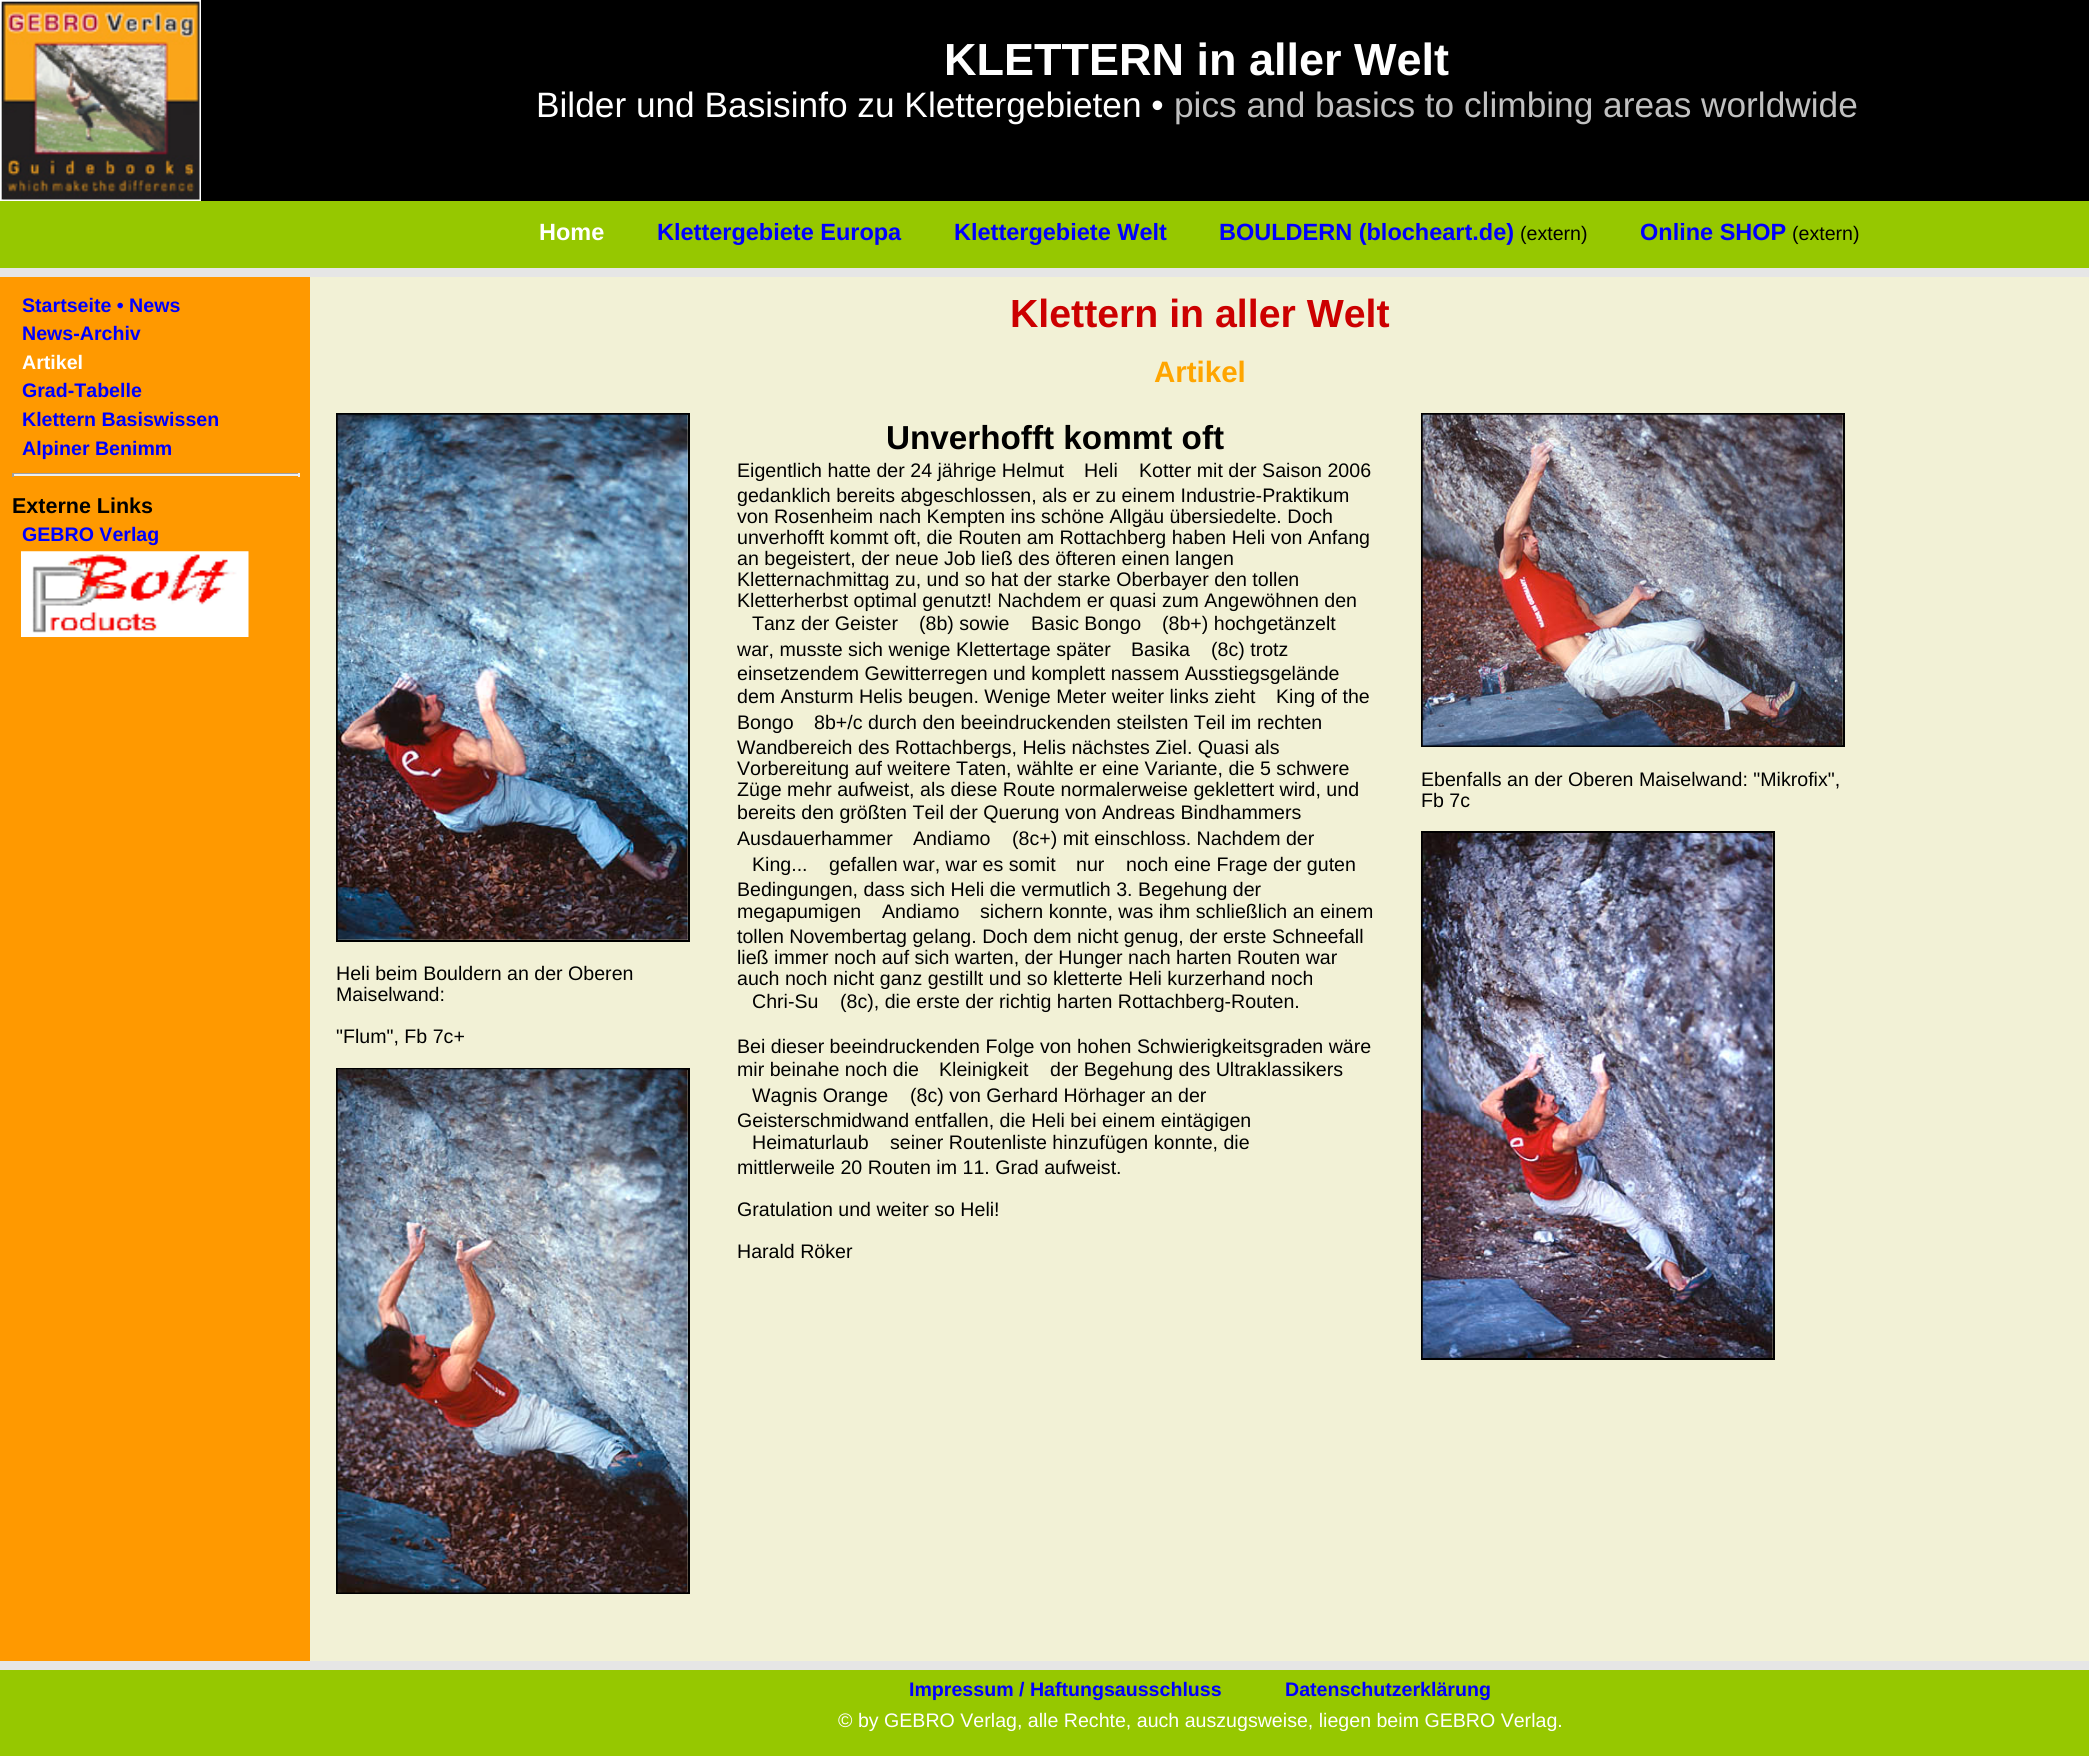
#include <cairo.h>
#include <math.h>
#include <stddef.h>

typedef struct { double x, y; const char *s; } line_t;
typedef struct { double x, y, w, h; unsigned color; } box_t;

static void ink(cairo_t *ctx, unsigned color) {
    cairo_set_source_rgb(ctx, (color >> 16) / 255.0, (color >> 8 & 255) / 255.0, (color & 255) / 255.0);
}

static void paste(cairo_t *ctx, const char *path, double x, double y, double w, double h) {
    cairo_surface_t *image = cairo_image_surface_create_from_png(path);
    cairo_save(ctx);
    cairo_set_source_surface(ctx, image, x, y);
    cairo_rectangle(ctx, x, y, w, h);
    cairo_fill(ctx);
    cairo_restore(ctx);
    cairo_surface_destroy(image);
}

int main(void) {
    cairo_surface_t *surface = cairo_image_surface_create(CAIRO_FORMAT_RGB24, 2089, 1756);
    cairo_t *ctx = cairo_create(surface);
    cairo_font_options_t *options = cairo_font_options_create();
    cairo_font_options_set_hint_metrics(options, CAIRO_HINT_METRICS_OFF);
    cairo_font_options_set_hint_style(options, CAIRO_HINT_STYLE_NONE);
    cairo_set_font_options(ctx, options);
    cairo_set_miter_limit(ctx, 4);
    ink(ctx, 0xFF9900);
    cairo_paint(ctx);
    ink(ctx, 0x000000);
    cairo_rectangle(ctx, 2, 0, 2087, 201);
    cairo_fill(ctx);
    cairo_rectangle(ctx, 1, 1, 199, 199);
    ink(ctx, 0xFFFFFF);
    cairo_stroke(ctx);
    paste(ctx, "media/1.png", 1, 1, 199, 199);
    cairo_select_font_face(ctx, "Liberation Sans", CAIRO_FONT_SLANT_NORMAL, CAIRO_FONT_WEIGHT_BOLD);
    cairo_set_font_size(ctx, 45);
    cairo_move_to(ctx, 944, 75);
    cairo_show_text(ctx, "KLETTERN in aller Welt");
    cairo_select_font_face(ctx, "Liberation Sans", CAIRO_FONT_SLANT_NORMAL, CAIRO_FONT_WEIGHT_NORMAL);
    cairo_set_font_size(ctx, 35.25);
    cairo_move_to(ctx, 536, 117);
    cairo_show_text(ctx, "Bilder und Basisinfo zu Klettergebieten •");
    ink(ctx, 0xC0C0C0);
    cairo_move_to(ctx, 1174, 117);
    cairo_show_text(ctx, "pics and basics to climbing areas worldwide");
    ink(ctx, 0x96C800);
    cairo_rectangle(ctx, 0, 201, 2089, 67);
    cairo_fill(ctx);
    ink(ctx, 0xE6E6E6);
    cairo_rectangle(ctx, 0, 268, 2089, 9);
    cairo_fill(ctx);
    cairo_select_font_face(ctx, "Liberation Sans", CAIRO_FONT_SLANT_NORMAL, CAIRO_FONT_WEIGHT_BOLD);
    cairo_set_font_size(ctx, 23.5);
    ink(ctx, 0xFFFFFF);
    cairo_move_to(ctx, 539, 240);
    cairo_show_text(ctx, "Home");
    ink(ctx, 0x0000FF);
    {
        static const line_t items[] = {
            {657, 240, "Klettergebiete Europa"},
            {954, 240, "Klettergebiete Welt"},
            {1219, 240, "BOULDERN (blocheart.de)"},
        };
        for (size_t i = 0; i < sizeof items / sizeof *items; i++) {
            cairo_move_to(ctx, items[i].x, items[i].y);
            cairo_show_text(ctx, items[i].s);
        }
    }
    cairo_select_font_face(ctx, "Liberation Sans", CAIRO_FONT_SLANT_NORMAL, CAIRO_FONT_WEIGHT_NORMAL);
    cairo_set_font_size(ctx, 19.6);
    ink(ctx, 0x000000);
    cairo_move_to(ctx, 1520, 240);
    cairo_show_text(ctx, "(extern)");
    cairo_select_font_face(ctx, "Liberation Sans", CAIRO_FONT_SLANT_NORMAL, CAIRO_FONT_WEIGHT_BOLD);
    cairo_set_font_size(ctx, 23.5);
    ink(ctx, 0x0000FF);
    cairo_move_to(ctx, 1640, 240);
    cairo_show_text(ctx, "Online SHOP");
    cairo_select_font_face(ctx, "Liberation Sans", CAIRO_FONT_SLANT_NORMAL, CAIRO_FONT_WEIGHT_NORMAL);
    cairo_set_font_size(ctx, 19.6);
    ink(ctx, 0x000000);
    cairo_move_to(ctx, 1792, 240);
    cairo_show_text(ctx, "(extern)");
    cairo_select_font_face(ctx, "Liberation Sans", CAIRO_FONT_SLANT_NORMAL, CAIRO_FONT_WEIGHT_BOLD);
    ink(ctx, 0x0000FF);
    cairo_move_to(ctx, 22, 312);
    cairo_show_text(ctx, "Startseite • News");
    cairo_move_to(ctx, 22, 340);
    cairo_show_text(ctx, "News-Archiv");
    ink(ctx, 0xFFFFFF);
    cairo_move_to(ctx, 22, 369);
    cairo_show_text(ctx, "Artikel");
    ink(ctx, 0x0000FF);
    {
        static const line_t items[] = {
            {22, 397, "Grad-Tabelle"},
            {22, 426, "Klettern Basiswissen"},
            {22, 455, "Alpiner Benimm"},
        };
        for (size_t i = 0; i < sizeof items / sizeof *items; i++) {
            cairo_move_to(ctx, items[i].x, items[i].y);
            cairo_show_text(ctx, items[i].s);
        }
    }
    {
        static const box_t items[] = {
            {12, 473, 287, 1, 0x9F9F9F},
            {298, 473, 2, 4, 0xEEEEEE},
            {12, 474, 287, 2, 0xEEEEEE},
            {12, 473, 2, 4, 0x9F9F9F},
        };
        for (size_t i = 0; i < sizeof items / sizeof *items; i++) {
            ink(ctx, items[i].color);
            cairo_rectangle(ctx, items[i].x, items[i].y, items[i].w, items[i].h);
            cairo_fill(ctx);
        }
    }
    cairo_set_font_size(ctx, 21.5);
    ink(ctx, 0x000000);
    cairo_move_to(ctx, 12, 513);
    cairo_show_text(ctx, "Externe Links");
    cairo_set_font_size(ctx, 19.6);
    ink(ctx, 0x0000FF);
    cairo_move_to(ctx, 22, 541);
    cairo_show_text(ctx, "GEBRO Verlag");
    paste(ctx, "media/2.png", 21, 551, 228, 86);
    ink(ctx, 0xF2F1D6);
    cairo_rectangle(ctx, 310, 277, 1779, 1384);
    cairo_fill(ctx);
    cairo_set_font_size(ctx, 39.25);
    ink(ctx, 0xCC0000);
    cairo_move_to(ctx, 1010, 327);
    cairo_show_text(ctx, "Klettern in aller Welt");
    cairo_set_font_size(ctx, 29.5);
    ink(ctx, 0xFFA500);
    cairo_move_to(ctx, 1154, 382);
    cairo_show_text(ctx, "Artikel");
    cairo_set_font_size(ctx, 33.25);
    ink(ctx, 0x000000);
    cairo_move_to(ctx, 886, 449);
    cairo_show_text(ctx, "Unverhofft kommt oft");
    cairo_select_font_face(ctx, "Liberation Sans", CAIRO_FONT_SLANT_NORMAL, CAIRO_FONT_WEIGHT_NORMAL);
    cairo_set_font_size(ctx, 19.6);
    {
        static const line_t items[] = {
            {737, 477, "Eigentlich hatte der 24 jährige Helmut"},
            {1084, 477, "Heli"},
            {1139, 477, "Kotter mit der Saison 2006"},
            {737, 502, "gedanklich bereits abgeschlossen, als er zu einem Industrie-Praktikum"},
            {737, 523, "von Rosenheim nach Kempten ins schöne Allgäu übersiedelte. Doch"},
            {737, 544, "unverhofft kommt oft, die Routen am Rottachberg haben Heli von Anfang"},
            {737, 565, "an begeistert, der neue Job ließ des öfteren einen langen"},
            {737, 586, "Kletternachmittag zu, und so hat der starke Oberbayer den tollen"},
            {737, 607, "Kletterherbst optimal genutzt! Nachdem er quasi zum Angewöhnen den"},
            {752, 630, "Tanz der Geister"},
            {919, 630, "(8b) sowie"},
            {1031, 630, "Basic Bongo"},
            {1162, 630, "(8b+) hochgetänzelt"},
            {737, 656, "war, musste sich wenige Klettertage später"},
            {1131, 656, "Basika"},
            {1211, 656, "(8c) trotz"},
            {737, 680, "einsetzendem Gewitterregen und komplett nassem Ausstiegsgelände"},
            {737, 703, "dem Ansturm Helis beugen. Wenige Meter weiter links zieht"},
            {1276, 703, "King of the"},
            {737, 729, "Bongo"},
            {814, 729, "8b+/c durch den beeindruckenden steilsten Teil im rechten"},
            {737, 754, "Wandbereich des Rottachbergs, Helis nächstes Ziel. Quasi als"},
            {737, 775, "Vorbereitung auf weitere Taten, wählte er eine Variante, die 5 schwere"},
            {737, 796, "Züge mehr aufweist, als diese Route normalerweise geklettert wird, und"},
            {737, 819, "bereits den größten Teil der Querung von Andreas Bindhammers"},
            {737, 845, "Ausdauerhammer"},
            {913, 845, "Andiamo"},
            {1012, 845, "(8c+) mit einschloss. Nachdem der"},
            {752, 871, "King..."},
            {829, 871, "gefallen war, war es somit"},
            {1076, 871, "nur"},
            {1126, 871, "noch eine Frage der guten"},
            {737, 896, "Bedingungen, dass sich Heli die vermutlich 3. Begehung der"},
            {737, 918, "megapumigen"},
            {882, 918, "Andiamo"},
            {980, 918, "sichern konnte, was ihm schließlich an einem"},
            {737, 943, "tollen Novembertag gelang. Doch dem nicht genug, der erste Schneefall"},
            {737, 964, "ließ immer noch auf sich warten, der Hunger nach harten Routen war"},
            {737, 985, "auch noch nicht ganz gestillt und so kletterte Heli kurzerhand noch"},
            {752, 1008, "Chri-Su"},
            {840, 1008, "(8c), die erste der richtig harten Rottachberg-Routen."},
            {737, 1053, "Bei dieser beeindruckenden Folge von hohen Schwierigkeitsgraden wäre"},
            {737, 1076, "mir beinahe noch die"},
            {939, 1076, "Kleinigkeit"},
            {1050, 1076, "der Begehung des Ultraklassikers"},
            {752, 1102, "Wagnis Orange"},
            {910, 1102, "(8c) von Gerhard Hörhager an der"},
            {737, 1127, "Geisterschmidwand entfallen, die Heli bei einem eintägigen"},
            {752, 1149, "Heimaturlaub"},
            {890, 1149, "seiner Routenliste hinzufügen konnte, die"},
            {737, 1174, "mittlerweile 20 Routen im 11. Grad aufweist."},
            {737, 1216, "Gratulation und weiter so Heli!"},
            {737, 1258, "Harald Röker"},
        };
        for (size_t i = 0; i < sizeof items / sizeof *items; i++) {
            cairo_move_to(ctx, items[i].x, items[i].y);
            cairo_show_text(ctx, items[i].s);
        }
    }
    cairo_rectangle(ctx, 1422, 414, 422, 332);
    cairo_stroke(ctx);
    paste(ctx, "media/3.png", 1422, 414, 421, 332);
    cairo_move_to(ctx, 1421, 786);
    cairo_show_text(ctx, "Ebenfalls an der Oberen Maiselwand: \"Mikrofix\",");
    cairo_move_to(ctx, 1421, 807);
    cairo_show_text(ctx, "Fb 7c");
    cairo_rectangle(ctx, 1422, 832, 352, 527);
    cairo_stroke(ctx);
    paste(ctx, "media/4.png", 1422, 833, 351, 525);
    cairo_rectangle(ctx, 337, 414, 352, 527);
    cairo_stroke(ctx);
    paste(ctx, "media/5.png", 337, 414, 351, 526);
    {
        static const line_t items[] = {
            {336, 980, "Heli beim Bouldern an der Oberen"},
            {336, 1001, "Maiselwand:"},
            {336, 1043, "\"Flum\", Fb 7c+"},
        };
        for (size_t i = 0; i < sizeof items / sizeof *items; i++) {
            cairo_move_to(ctx, items[i].x, items[i].y);
            cairo_show_text(ctx, items[i].s);
        }
    }
    cairo_rectangle(ctx, 337, 1069, 352, 524);
    cairo_stroke(ctx);
    paste(ctx, "media/6.png", 337, 1069, 351, 524);
    ink(ctx, 0x96C800);
    cairo_rectangle(ctx, 0, 1670, 2089, 86);
    cairo_fill(ctx);
    ink(ctx, 0xE6E6E6);
    cairo_rectangle(ctx, 0, 1661, 2089, 9);
    cairo_fill(ctx);
    cairo_select_font_face(ctx, "Liberation Sans", CAIRO_FONT_SLANT_NORMAL, CAIRO_FONT_WEIGHT_BOLD);
    ink(ctx, 0x0000FF);
    cairo_move_to(ctx, 909, 1696);
    cairo_show_text(ctx, "Impressum / Haftungsausschluss");
    cairo_move_to(ctx, 1285, 1696);
    cairo_show_text(ctx, "Datenschutzerklärung");
    cairo_select_font_face(ctx, "Liberation Sans", CAIRO_FONT_SLANT_NORMAL, CAIRO_FONT_WEIGHT_NORMAL);
    ink(ctx, 0xFFFFFF);
    cairo_move_to(ctx, 838, 1727);
    cairo_show_text(ctx, "© by GEBRO Verlag, alle Rechte, auch auszugsweise, liegen beim GEBRO Verlag.");
    cairo_surface_write_to_png(surface, "image.png");
    cairo_font_options_destroy(options);
    cairo_destroy(ctx);
    cairo_surface_destroy(surface);
    return 0;
}
